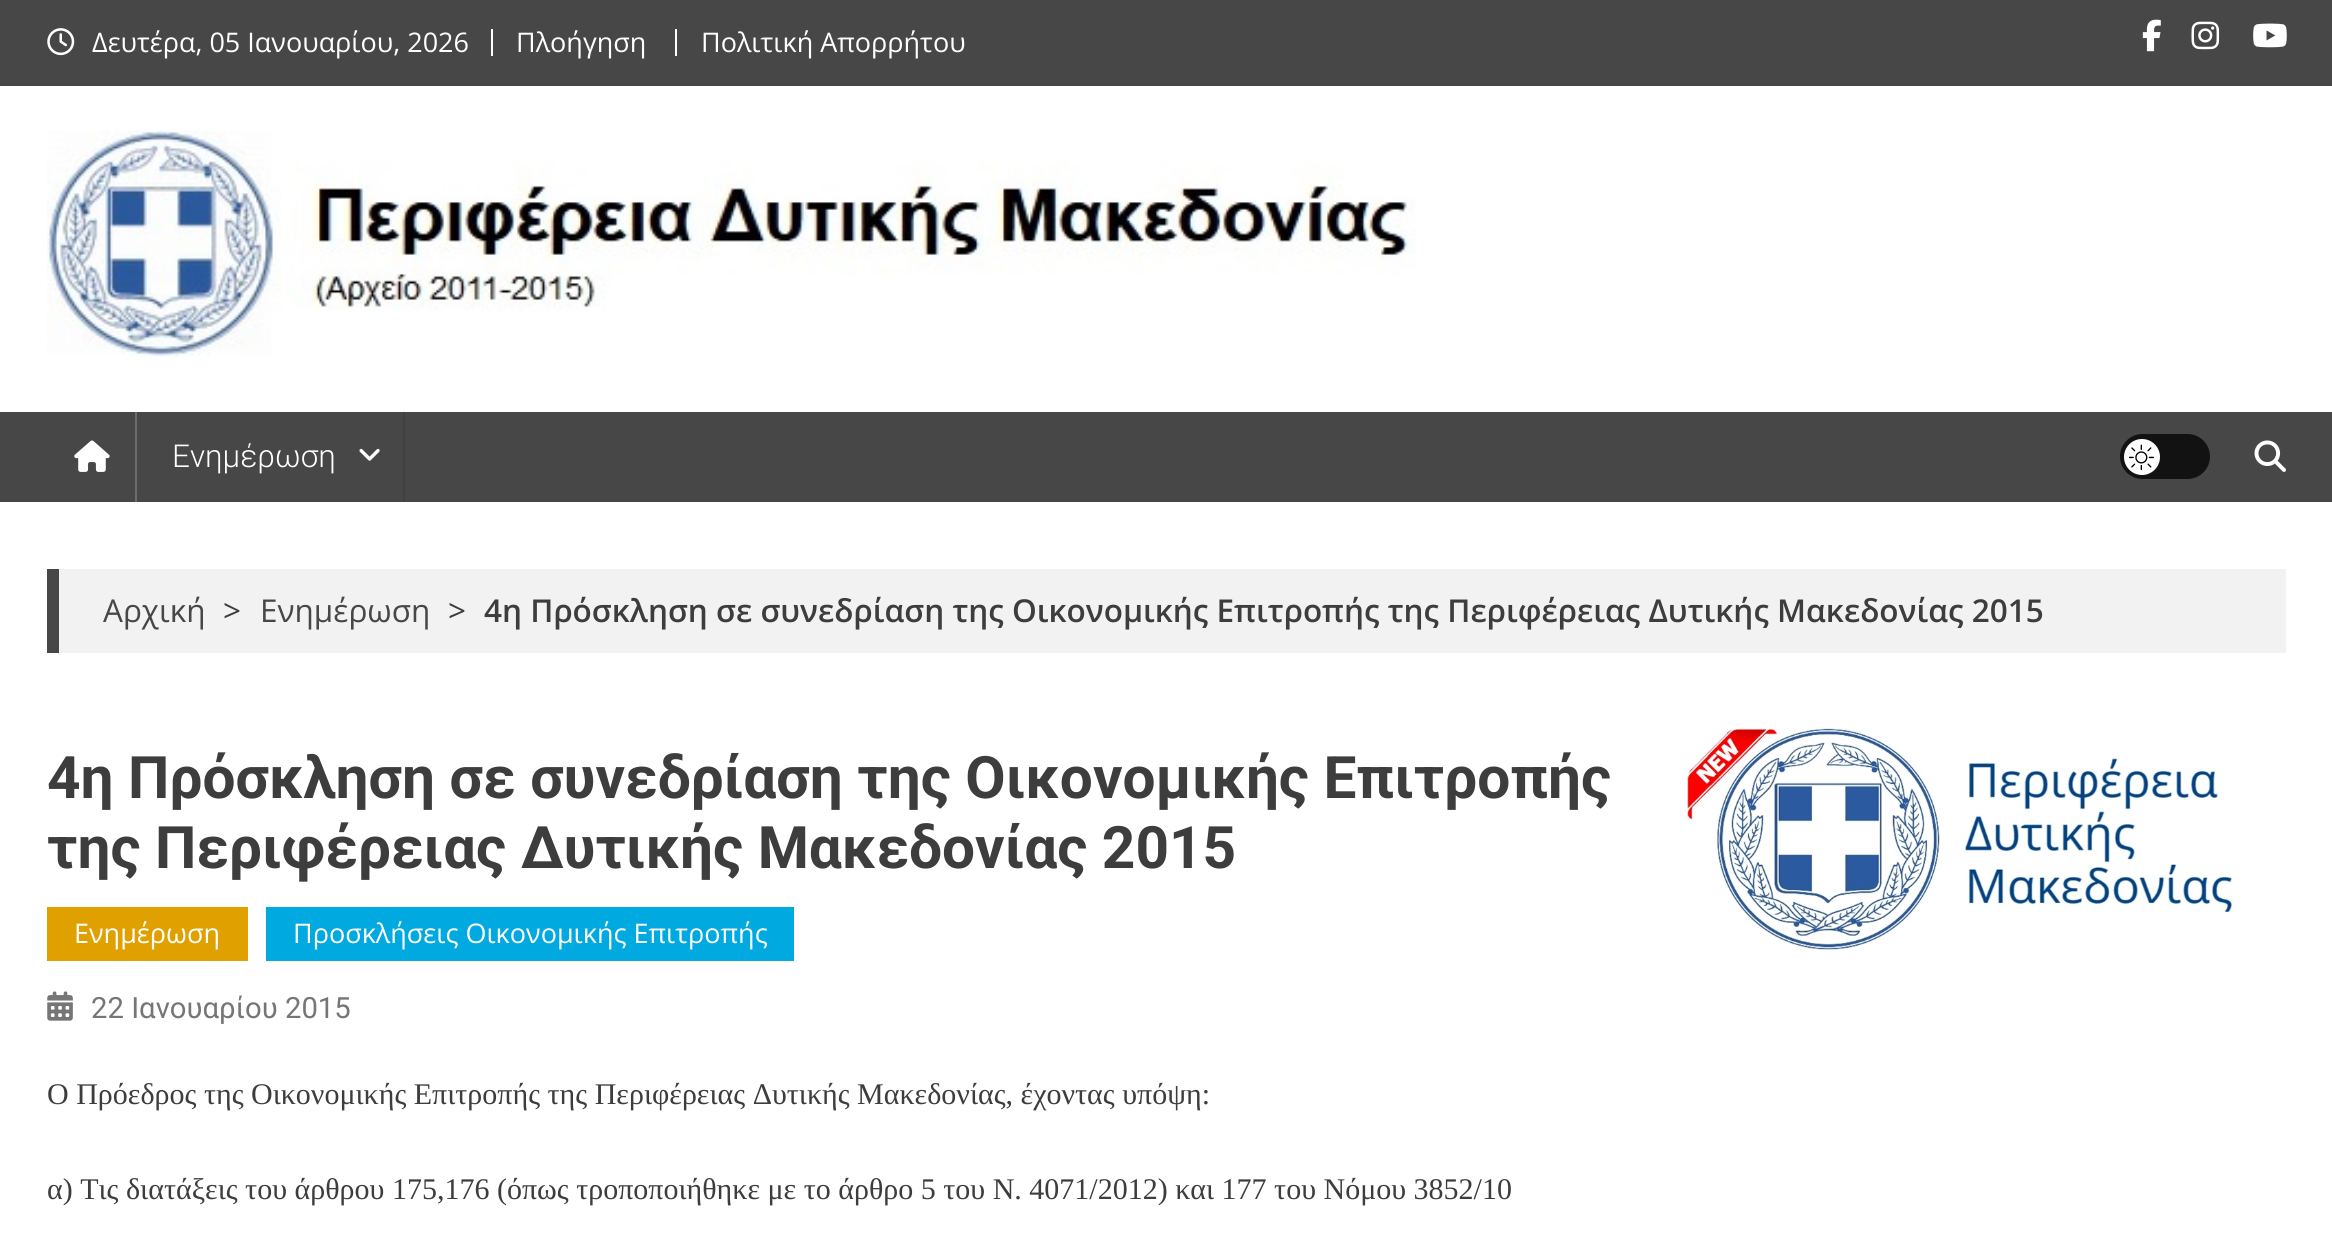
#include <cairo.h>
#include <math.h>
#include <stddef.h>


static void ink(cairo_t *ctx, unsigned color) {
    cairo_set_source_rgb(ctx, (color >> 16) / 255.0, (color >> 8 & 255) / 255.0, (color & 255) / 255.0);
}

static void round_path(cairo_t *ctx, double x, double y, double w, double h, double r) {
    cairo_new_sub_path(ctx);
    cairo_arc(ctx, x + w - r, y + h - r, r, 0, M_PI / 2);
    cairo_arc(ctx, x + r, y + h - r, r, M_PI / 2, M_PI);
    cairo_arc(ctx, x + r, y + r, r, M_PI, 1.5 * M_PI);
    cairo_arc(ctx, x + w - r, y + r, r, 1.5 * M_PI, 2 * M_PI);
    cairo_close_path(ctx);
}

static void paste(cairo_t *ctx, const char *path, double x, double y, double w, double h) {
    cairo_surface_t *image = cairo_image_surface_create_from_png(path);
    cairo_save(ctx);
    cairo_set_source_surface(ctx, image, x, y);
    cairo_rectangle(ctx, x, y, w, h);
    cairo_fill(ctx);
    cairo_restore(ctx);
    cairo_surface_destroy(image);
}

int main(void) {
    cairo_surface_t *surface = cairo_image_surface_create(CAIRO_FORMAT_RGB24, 2332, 1238);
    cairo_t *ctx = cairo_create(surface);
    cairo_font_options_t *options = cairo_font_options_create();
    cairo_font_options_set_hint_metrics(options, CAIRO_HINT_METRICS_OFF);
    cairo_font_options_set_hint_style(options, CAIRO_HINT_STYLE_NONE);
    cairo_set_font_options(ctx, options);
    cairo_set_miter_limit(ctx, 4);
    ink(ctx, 0xFFFFFF);
    cairo_paint(ctx);
    ink(ctx, 0x474747);
    cairo_rectangle(ctx, 0, 0, 2332, 86);
    cairo_fill(ctx);
    paste(ctx, "media/1.png", 47, 28, 28, 28);
    cairo_select_font_face(ctx, "Open Sans", CAIRO_FONT_SLANT_NORMAL, CAIRO_FONT_WEIGHT_NORMAL);
    cairo_set_font_size(ctx, 27);
    ink(ctx, 0xFFFFFF);
    cairo_move_to(ctx, 92, 52);
    cairo_show_text(ctx, "Δευτέρα, 05 Ιανουαρίου, 2026");
    cairo_rectangle(ctx, 491, 29, 2, 27);
    cairo_fill(ctx);
    cairo_move_to(ctx, 516, 52);
    cairo_show_text(ctx, "Πλοήγηση");
    cairo_rectangle(ctx, 675, 29, 2, 27);
    cairo_fill(ctx);
    cairo_move_to(ctx, 701, 52);
    cairo_show_text(ctx, "Πολιτική Απορρήτου");
    paste(ctx, "media/2.png", 2142, 19, 19, 33);
    paste(ctx, "media/3.png", 2191, 21, 29, 29);
    paste(ctx, "media/4.png", 2253, 23, 34, 25);
    paste(ctx, "media/5.png", 47, 130, 1369, 226);
    ink(ctx, 0x474747);
    cairo_rectangle(ctx, 0, 412, 2332, 90);
    cairo_fill(ctx);
    paste(ctx, "media/6.png", 74, 440, 36, 32);
    ink(ctx, 0x414141);
    cairo_rectangle(ctx, 403, 412, 2, 90);
    cairo_fill(ctx);
    ink(ctx, 0x6C6C6C);
    cairo_rectangle(ctx, 135, 412, 2, 90);
    cairo_fill(ctx);
    cairo_select_font_face(ctx, "Roboto Light", CAIRO_FONT_SLANT_NORMAL, CAIRO_FONT_WEIGHT_NORMAL);
    cairo_set_font_size(ctx, 31.5);
    ink(ctx, 0xFFFFFF);
    cairo_move_to(ctx, 172, 467);
    cairo_show_text(ctx, "Ενημέρωση");
    paste(ctx, "media/7.png", 359, 448, 21, 13);
    ink(ctx, 0x121212);
    round_path(ctx, 2120, 434, 90, 45, 22.5);
    cairo_fill(ctx);
    ink(ctx, 0xFFFFFF);
    cairo_arc(ctx, 2142, 457, 18, 0, 2 * M_PI);
    cairo_fill(ctx);
    paste(ctx, "media/8.png", 2129, 444, 26, 26);
    paste(ctx, "media/9.png", 2254, 440, 32, 32);
    ink(ctx, 0xF2F2F2);
    cairo_rectangle(ctx, 59, 569, 2227, 84);
    cairo_fill(ctx);
    ink(ctx, 0x474747);
    cairo_rectangle(ctx, 47, 569, 12, 84);
    cairo_fill(ctx);
    cairo_select_font_face(ctx, "Open Sans", CAIRO_FONT_SLANT_NORMAL, CAIRO_FONT_WEIGHT_NORMAL);
    cairo_move_to(ctx, 103, 622);
    cairo_show_text(ctx, "Αρχική");
    ink(ctx, 0x3D3D3D);
    cairo_move_to(ctx, 223, 622);
    cairo_show_text(ctx, ">");
    ink(ctx, 0x474747);
    cairo_move_to(ctx, 260, 622);
    cairo_show_text(ctx, "Ενημέρωση");
    ink(ctx, 0x3D3D3D);
    cairo_move_to(ctx, 448, 622);
    cairo_show_text(ctx, ">");
    cairo_select_font_face(ctx, "Open Sans SemiBold", CAIRO_FONT_SLANT_NORMAL, CAIRO_FONT_WEIGHT_NORMAL);
    cairo_move_to(ctx, 484, 622);
    cairo_show_text(ctx, "4η Πρόσκληση σε συνεδρίαση της Οικονομικής Επιτροπής της Περιφέρειας Δυτικής Μακεδονίας 2015");
    cairo_select_font_face(ctx, "Roboto", CAIRO_FONT_SLANT_NORMAL, CAIRO_FONT_WEIGHT_BOLD);
    cairo_set_font_size(ctx, 58.5);
    cairo_move_to(ctx, 47, 798);
    cairo_show_text(ctx, "4η Πρόσκληση σε συνεδρίαση της Οικονομικής Επιτροπής");
    cairo_move_to(ctx, 47, 868);
    cairo_show_text(ctx, "της Περιφέρειας Δυτικής Μακεδονίας 2015");
    ink(ctx, 0xE0A000);
    cairo_rectangle(ctx, 47, 907, 201, 54);
    cairo_fill(ctx);
    cairo_select_font_face(ctx, "Open Sans", CAIRO_FONT_SLANT_NORMAL, CAIRO_FONT_WEIGHT_NORMAL);
    cairo_set_font_size(ctx, 27);
    ink(ctx, 0xFFFFFF);
    cairo_move_to(ctx, 74, 943);
    cairo_show_text(ctx, "Ενημέρωση");
    ink(ctx, 0x00A9E0);
    cairo_rectangle(ctx, 266, 907, 528, 54);
    cairo_fill(ctx);
    ink(ctx, 0xFFFFFF);
    cairo_move_to(ctx, 293, 943);
    cairo_show_text(ctx, "Προσκλήσεις Οικονομικής Επιτροπής");
    paste(ctx, "media/10.png", 47, 991, 26, 30);
    cairo_select_font_face(ctx, "Roboto", CAIRO_FONT_SLANT_NORMAL, CAIRO_FONT_WEIGHT_NORMAL);
    cairo_set_font_size(ctx, 29.25);
    ink(ctx, 0x767676);
    cairo_move_to(ctx, 91, 1018);
    cairo_show_text(ctx, "22 Ιανουαρίου 2015");
    cairo_select_font_face(ctx, "Liberation Serif", CAIRO_FONT_SLANT_NORMAL, CAIRO_FONT_WEIGHT_NORMAL);
    cairo_set_font_size(ctx, 30);
    ink(ctx, 0x3D3D3D);
    cairo_move_to(ctx, 47, 1104);
    cairo_show_text(ctx, "Ο Πρόεδρος της Οικονομικής Επιτροπής της Περιφέρειας Δυτικής Μακεδονίας, έχοντας υπόψη:");
    cairo_move_to(ctx, 47, 1199);
    cairo_show_text(ctx, "α) Τις διατάξεις του άρθρου 175,176 (όπως τροποποιήθηκε με το άρθρο 5 του Ν. 4071/2012) και 177 του Νόμου 3852/10");
    paste(ctx, "media/11.png", 1687, 728, 546, 222);
    cairo_surface_write_to_png(surface, "image.png");
    cairo_font_options_destroy(options);
    cairo_destroy(ctx);
    cairo_surface_destroy(surface);
    return 0;
}
